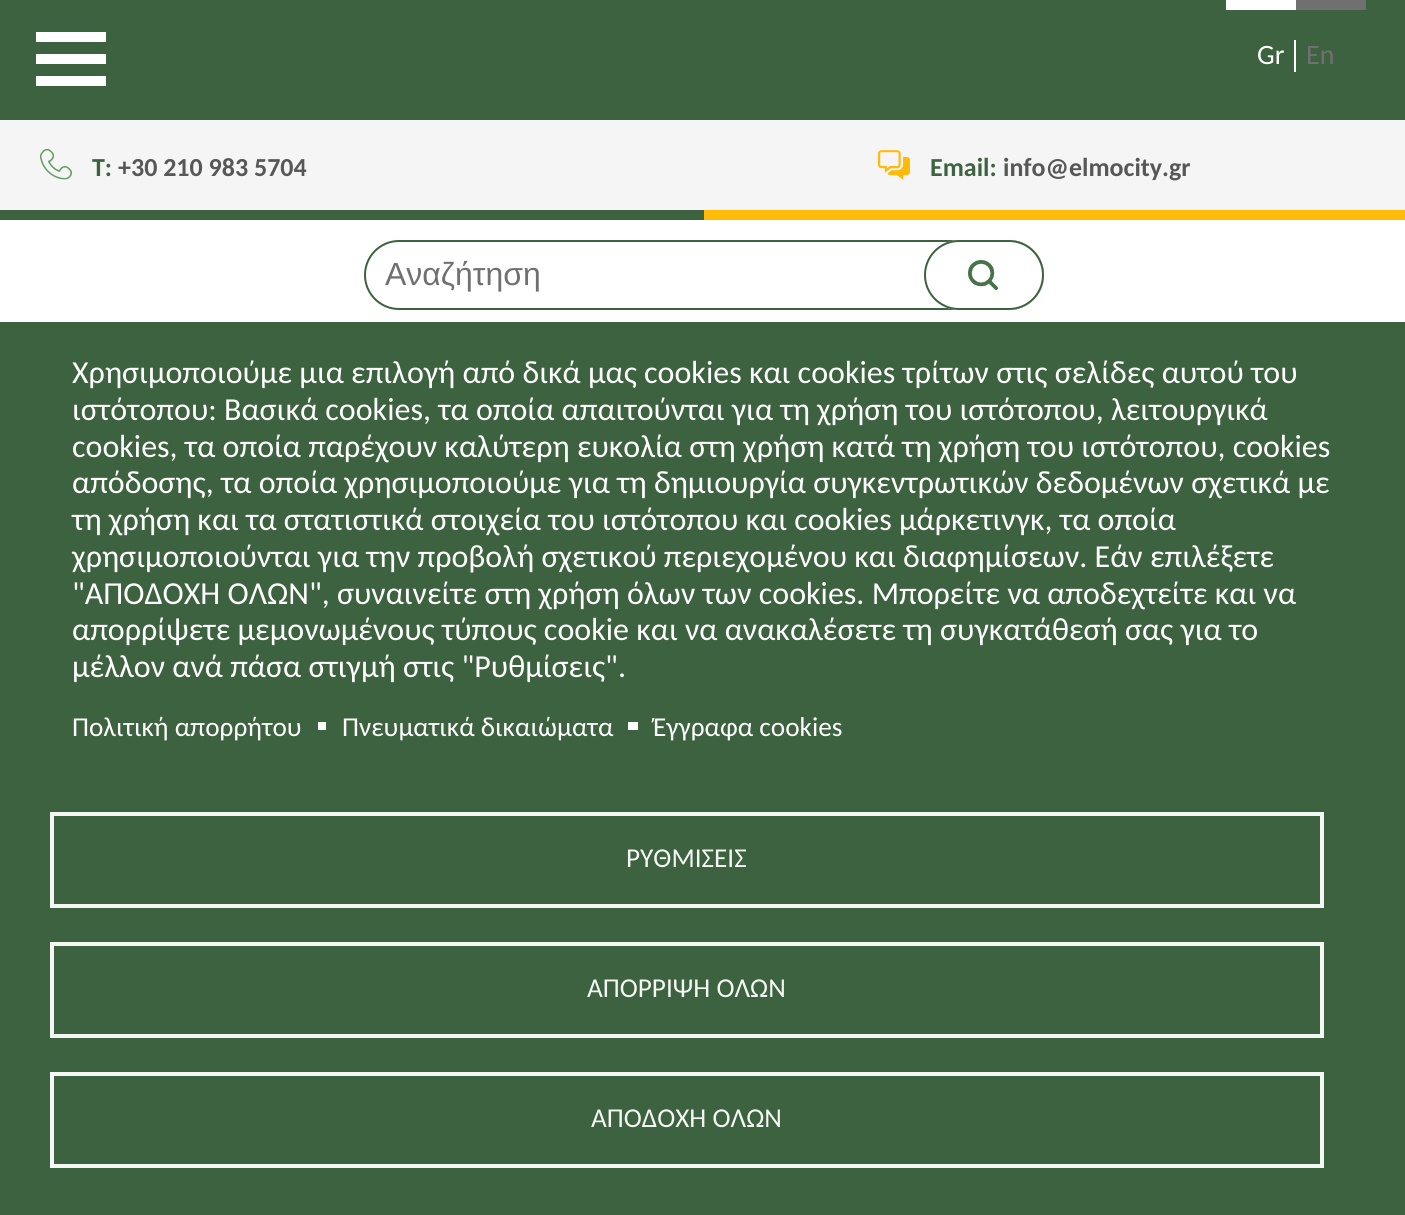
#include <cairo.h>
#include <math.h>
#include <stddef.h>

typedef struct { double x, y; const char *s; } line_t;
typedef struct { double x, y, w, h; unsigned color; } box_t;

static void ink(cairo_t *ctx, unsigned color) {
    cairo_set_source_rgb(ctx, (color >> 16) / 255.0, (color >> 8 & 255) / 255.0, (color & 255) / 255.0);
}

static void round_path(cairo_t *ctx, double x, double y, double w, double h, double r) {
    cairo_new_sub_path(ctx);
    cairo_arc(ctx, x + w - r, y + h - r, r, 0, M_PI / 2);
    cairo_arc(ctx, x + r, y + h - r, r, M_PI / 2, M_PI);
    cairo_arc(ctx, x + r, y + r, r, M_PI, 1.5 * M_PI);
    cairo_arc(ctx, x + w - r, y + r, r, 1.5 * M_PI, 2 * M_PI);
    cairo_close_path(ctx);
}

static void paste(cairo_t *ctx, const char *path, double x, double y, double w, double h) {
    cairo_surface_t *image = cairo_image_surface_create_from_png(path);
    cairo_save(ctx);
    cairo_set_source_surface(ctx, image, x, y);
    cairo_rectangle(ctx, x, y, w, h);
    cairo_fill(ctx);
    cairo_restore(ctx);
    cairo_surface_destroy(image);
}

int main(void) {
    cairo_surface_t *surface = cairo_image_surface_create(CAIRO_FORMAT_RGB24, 1405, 1215);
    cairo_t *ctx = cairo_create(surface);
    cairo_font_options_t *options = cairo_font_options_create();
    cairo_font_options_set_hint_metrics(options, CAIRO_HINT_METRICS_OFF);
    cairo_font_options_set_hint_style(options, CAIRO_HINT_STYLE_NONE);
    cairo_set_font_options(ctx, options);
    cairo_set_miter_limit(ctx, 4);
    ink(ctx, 0xFFFFFF);
    cairo_paint(ctx);
    {
        static const box_t items[] = {
            {0, 0, 1405, 120, 0x3D623F},
            {36, 32, 70, 10, 0xFFFFFF},
            {36, 54, 70, 10, 0xFFFFFF},
            {36, 76, 70, 10, 0xFFFFFF},
            {1226, 0, 70, 10, 0xFFFFFF},
            {1294, 40, 2, 32, 0xFFFFFF},
        };
        for (size_t i = 0; i < sizeof items / sizeof *items; i++) {
            ink(ctx, items[i].color);
            cairo_rectangle(ctx, items[i].x, items[i].y, items[i].w, items[i].h);
            cairo_fill(ctx);
        }
    }
    cairo_select_font_face(ctx, "Carlito", CAIRO_FONT_SLANT_NORMAL, CAIRO_FONT_WEIGHT_NORMAL);
    cairo_set_font_size(ctx, 28);
    cairo_move_to(ctx, 1257, 64);
    cairo_show_text(ctx, "Gr");
    ink(ctx, 0x707070);
    cairo_rectangle(ctx, 1296, 0, 70, 10);
    cairo_fill(ctx);
    cairo_move_to(ctx, 1306, 64);
    cairo_show_text(ctx, "En");
    ink(ctx, 0xF5F5F5);
    cairo_rectangle(ctx, 0, 120, 1405, 90);
    cairo_fill(ctx);
    ink(ctx, 0x3D623F);
    cairo_rectangle(ctx, 0, 210, 704, 10);
    cairo_fill(ctx);
    paste(ctx, "media/1.png", 40, 149, 32, 31);
    cairo_select_font_face(ctx, "Carlito", CAIRO_FONT_SLANT_NORMAL, CAIRO_FONT_WEIGHT_BOLD);
    cairo_set_font_size(ctx, 26);
    cairo_move_to(ctx, 92, 176);
    cairo_show_text(ctx, "Τ:");
    ink(ctx, 0x575757);
    cairo_move_to(ctx, 118, 176);
    cairo_show_text(ctx, "+30 210 983 5704");
    ink(ctx, 0xFFBB08);
    cairo_rectangle(ctx, 704, 210, 701, 10);
    cairo_fill(ctx);
    paste(ctx, "media/2.png", 878, 150, 32, 30);
    ink(ctx, 0x3D623F);
    cairo_move_to(ctx, 930, 176);
    cairo_show_text(ctx, "Email:");
    ink(ctx, 0x575757);
    cairo_move_to(ctx, 1003, 176);
    cairo_show_text(ctx, "info@elmocity.gr");
    round_path(ctx, 365, 241, 678, 68, 34);
    ink(ctx, 0x3D623F);
    cairo_stroke(ctx);
    cairo_select_font_face(ctx, "Liberation Sans", CAIRO_FONT_SLANT_NORMAL, CAIRO_FONT_WEIGHT_NORMAL);
    cairo_set_font_size(ctx, 32);
    ink(ctx, 0x707070);
    cairo_move_to(ctx, 385, 285);
    cairo_show_text(ctx, "Αναζήτηση");
    ink(ctx, 0xFFFFFF);
    round_path(ctx, 924, 240, 120, 70, 35);
    cairo_fill(ctx);
    paste(ctx, "media/3.png", 968, 260, 30, 30);
    round_path(ctx, 925, 241, 118, 68, 34);
    ink(ctx, 0x3D623F);
    cairo_stroke(ctx);
    cairo_rectangle(ctx, 0, 322, 1405, 893);
    cairo_fill(ctx);
    cairo_select_font_face(ctx, "Carlito", CAIRO_FONT_SLANT_NORMAL, CAIRO_FONT_WEIGHT_NORMAL);
    ink(ctx, 0xFFFFFF);
    {
        static const line_t items[] = {
            {72, 383, "Χρησιμοποιούμε μια επιλογή από δικά μας cookies και cookies τρίτων στις σελίδες αυτού του"},
            {72, 420, "ιστότοπου: Βασικά cookies, τα οποία απαιτούνται για τη χρήση του ιστότοπου, λειτουργικά"},
            {72, 457, "cookies, τα οποία παρέχουν καλύτερη ευκολία στη χρήση κατά τη χρήση του ιστότοπου, cookies"},
            {72, 493, "απόδοσης, τα οποία χρησιμοποιούμε για τη δημιουργία συγκεντρωτικών δεδομένων σχετικά με"},
            {72, 530, "τη χρήση και τα στατιστικά στοιχεία του ιστότοπου και cookies μάρκετινγκ, τα οποία"},
            {72, 567, "χρησιμοποιούνται για την προβολή σχετικού περιεχομένου και διαφημίσεων. Εάν επιλέξετε"},
            {72, 604, "\"ΑΠΟΔΟΧΗ ΟΛΩΝ\", συναινείτε στη χρήση όλων των cookies. Μπορείτε να αποδεχτείτε και να"},
            {72, 640, "απορρίψετε μεμονωμένους τύπους cookie και να ανακαλέσετε τη συγκατάθεσή σας για το"},
            {72, 677, "μέλλον ανά πάσα στιγμή στις \"Ρυθμίσεις\"."},
        };
        for (size_t i = 0; i < sizeof items / sizeof *items; i++) {
            cairo_move_to(ctx, items[i].x, items[i].y);
            cairo_show_text(ctx, items[i].s);
        }
    }
    cairo_set_font_size(ctx, 27.25);
    cairo_move_to(ctx, 72, 736);
    cairo_show_text(ctx, "Πολιτική απορρήτου");
    cairo_rectangle(ctx, 318, 722, 8, 8);
    cairo_fill(ctx);
    cairo_move_to(ctx, 342, 736);
    cairo_show_text(ctx, "Πνευματικά δικαιώματα");
    cairo_rectangle(ctx, 628, 722, 10, 8);
    cairo_fill(ctx);
    cairo_move_to(ctx, 653, 736);
    cairo_show_text(ctx, "Έγγραφα cookies");
    cairo_rectangle(ctx, 52, 814, 1270, 92);
    ink(ctx, 0xF5F7F5);
    cairo_set_line_width(ctx, 4);
    cairo_stroke(ctx);
    cairo_move_to(ctx, 626, 867);
    cairo_show_text(ctx, "ΡΥΘΜΙΣΕΙΣ");
    cairo_rectangle(ctx, 52, 944, 1270, 92);
    cairo_stroke(ctx);
    cairo_move_to(ctx, 587, 997);
    cairo_show_text(ctx, "ΑΠΟΡΡΙΨΗ ΟΛΩΝ");
    cairo_rectangle(ctx, 52, 1074, 1270, 92);
    cairo_stroke(ctx);
    cairo_move_to(ctx, 591, 1127);
    cairo_show_text(ctx, "ΑΠΟΔΟΧΗ ΟΛΩΝ");
    cairo_surface_write_to_png(surface, "image.png");
    cairo_font_options_destroy(options);
    cairo_destroy(ctx);
    cairo_surface_destroy(surface);
    return 0;
}
